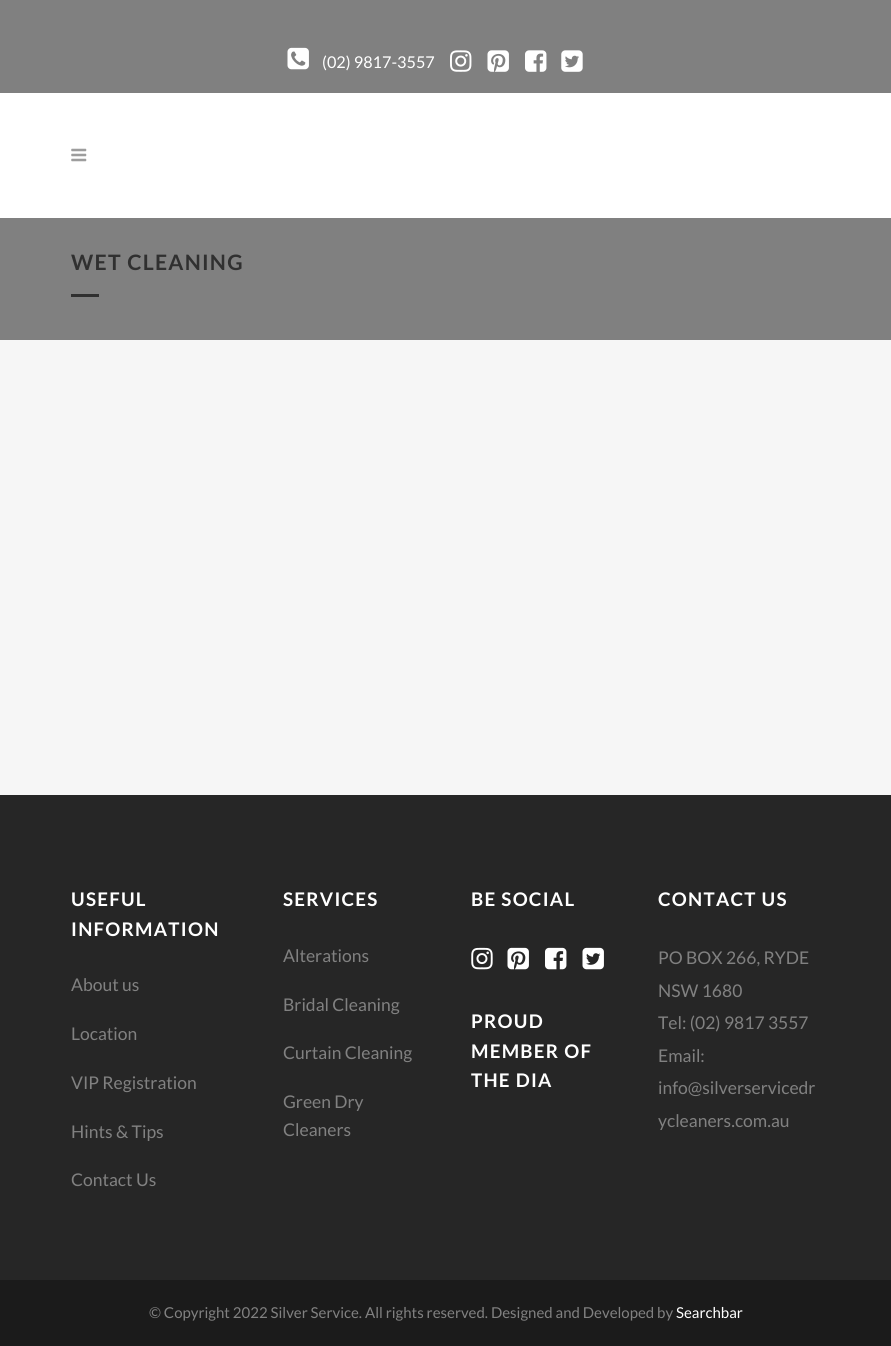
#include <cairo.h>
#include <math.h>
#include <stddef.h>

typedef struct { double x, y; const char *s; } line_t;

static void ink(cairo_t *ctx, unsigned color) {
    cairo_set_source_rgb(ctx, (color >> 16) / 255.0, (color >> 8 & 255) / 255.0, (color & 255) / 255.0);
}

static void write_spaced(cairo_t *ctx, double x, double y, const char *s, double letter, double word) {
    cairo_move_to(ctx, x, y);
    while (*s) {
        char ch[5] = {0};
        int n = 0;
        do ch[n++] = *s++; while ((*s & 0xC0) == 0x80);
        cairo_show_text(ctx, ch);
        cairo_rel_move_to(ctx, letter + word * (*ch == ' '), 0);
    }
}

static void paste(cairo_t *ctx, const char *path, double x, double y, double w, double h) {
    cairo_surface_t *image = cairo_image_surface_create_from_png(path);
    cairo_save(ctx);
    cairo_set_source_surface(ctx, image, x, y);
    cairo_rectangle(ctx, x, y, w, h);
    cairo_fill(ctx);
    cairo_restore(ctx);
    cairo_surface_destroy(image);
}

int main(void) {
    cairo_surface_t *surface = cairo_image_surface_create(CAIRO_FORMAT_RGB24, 891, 1346);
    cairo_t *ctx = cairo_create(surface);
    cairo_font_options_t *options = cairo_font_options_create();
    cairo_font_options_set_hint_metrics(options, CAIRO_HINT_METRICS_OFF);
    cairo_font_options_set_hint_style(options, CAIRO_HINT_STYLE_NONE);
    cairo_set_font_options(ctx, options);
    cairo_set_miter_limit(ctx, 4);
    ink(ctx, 0xF6F6F6);
    cairo_paint(ctx);
    ink(ctx, 0x808080);
    cairo_rectangle(ctx, 0, 0, 891, 93);
    cairo_fill(ctx);
    paste(ctx, "media/1.png", 287, 47, 22, 23);
    cairo_select_font_face(ctx, "Lato", CAIRO_FONT_SLANT_NORMAL, CAIRO_FONT_WEIGHT_NORMAL);
    cairo_set_font_size(ctx, 16.25);
    ink(ctx, 0xFFFFFF);
    cairo_move_to(ctx, 322, 68);
    cairo_show_text(ctx, "(02) 9817-3557");
    paste(ctx, "media/2.png", 450, 50, 22, 22);
    paste(ctx, "media/3.png", 487, 50, 22, 22);
    paste(ctx, "media/4.png", 525, 50, 22, 22);
    paste(ctx, "media/5.png", 561, 50, 22, 22);
    cairo_rectangle(ctx, 0, 93, 891, 125);
    cairo_fill(ctx);
    paste(ctx, "media/6.png", 71, 148, 16, 14);
    ink(ctx, 0x808080);
    cairo_rectangle(ctx, 0, 218, 891, 122);
    cairo_fill(ctx);
    cairo_select_font_face(ctx, "Lato", CAIRO_FONT_SLANT_NORMAL, CAIRO_FONT_WEIGHT_BOLD);
    cairo_set_font_size(ctx, 21.25);
    ink(ctx, 0x303030);
    write_spaced(ctx, 71, 270, "WET CLEANING", 1.25, 0);
    cairo_rectangle(ctx, 71, 294, 28, 3);
    cairo_fill(ctx);
    ink(ctx, 0x262626);
    cairo_rectangle(ctx, 0, 795, 891, 485);
    cairo_fill(ctx);
    cairo_set_font_size(ctx, 18.75);
    ink(ctx, 0xFFFFFF);
    write_spaced(ctx, 71, 906, "USEFUL", 1.25, 0);
    write_spaced(ctx, 71, 936, "INFORMATION", 1.25, 0);
    cairo_select_font_face(ctx, "Lato", CAIRO_FONT_SLANT_NORMAL, CAIRO_FONT_WEIGHT_NORMAL);
    cairo_set_font_size(ctx, 17.5);
    ink(ctx, 0x818181);
    {
        static const line_t items[] = {
            {71, 991, "About us"},
            {71, 1040, "Location"},
            {71, 1089, "VIP Registration"},
            {71, 1138, "Hints & Tips"},
            {71, 1186, "Contact Us"},
        };
        for (size_t i = 0; i < sizeof items / sizeof *items; i++) {
            cairo_move_to(ctx, items[i].x, items[i].y);
            cairo_show_text(ctx, items[i].s);
        }
    }
    cairo_select_font_face(ctx, "Lato", CAIRO_FONT_SLANT_NORMAL, CAIRO_FONT_WEIGHT_BOLD);
    cairo_set_font_size(ctx, 18.75);
    ink(ctx, 0xFFFFFF);
    write_spaced(ctx, 283, 906, "SERVICES", 1.25, 0);
    cairo_select_font_face(ctx, "Lato", CAIRO_FONT_SLANT_NORMAL, CAIRO_FONT_WEIGHT_NORMAL);
    cairo_set_font_size(ctx, 17.5);
    ink(ctx, 0x818181);
    {
        static const line_t items[] = {
            {283, 962, "Alterations"},
            {283, 1011, "Bridal Cleaning"},
            {283, 1059, "Curtain Cleaning"},
            {283, 1108, "Green Dry"},
            {283, 1136, "Cleaners"},
        };
        for (size_t i = 0; i < sizeof items / sizeof *items; i++) {
            cairo_move_to(ctx, items[i].x, items[i].y);
            cairo_show_text(ctx, items[i].s);
        }
    }
    cairo_select_font_face(ctx, "Lato", CAIRO_FONT_SLANT_NORMAL, CAIRO_FONT_WEIGHT_BOLD);
    cairo_set_font_size(ctx, 18.75);
    ink(ctx, 0xFFFFFF);
    write_spaced(ctx, 471, 906, "BE SOCIAL", 1.25, 0);
    paste(ctx, "media/7.png", 471, 947, 22, 23);
    paste(ctx, "media/8.png", 507, 947, 22, 23);
    paste(ctx, "media/9.png", 545, 947, 22, 23);
    paste(ctx, "media/10.png", 582, 947, 22, 23);
    {
        static const line_t items[] = {
            {471, 1028, "PROUD"},
            {471, 1058, "MEMBER OF"},
            {471, 1087, "THE DIA"},
            {658, 906, "CONTACT US"},
        };
        for (size_t i = 0; i < sizeof items / sizeof *items; i++) {
            write_spaced(ctx, items[i].x, items[i].y, items[i].s, 1.25, 0);
        }
    }
    cairo_select_font_face(ctx, "Lato", CAIRO_FONT_SLANT_NORMAL, CAIRO_FONT_WEIGHT_NORMAL);
    cairo_set_font_size(ctx, 17.5);
    ink(ctx, 0x818181);
    {
        static const line_t items[] = {
            {658, 964, "PO BOX 266, RYDE"},
            {658, 997, "NSW 1680"},
            {658, 1029, "Tel: (02) 9817 3557"},
            {658, 1062, "Email:"},
            {658, 1094, "info@silverservicedr"},
            {658, 1127, "ycleaners.com.au"},
        };
        for (size_t i = 0; i < sizeof items / sizeof *items; i++) {
            cairo_move_to(ctx, items[i].x, items[i].y);
            cairo_show_text(ctx, items[i].s);
        }
    }
    ink(ctx, 0x1B1B1B);
    cairo_rectangle(ctx, 0, 1280, 891, 66);
    cairo_fill(ctx);
    cairo_set_font_size(ctx, 15);
    ink(ctx, 0x818181);
    cairo_move_to(ctx, 149, 1318);
    cairo_show_text(ctx, "© Copyright 2022 Silver Service. All rights reserved. Designed and Developed by");
    ink(ctx, 0xFFFFFF);
    cairo_move_to(ctx, 676, 1318);
    cairo_show_text(ctx, "Searchbar");
    cairo_surface_write_to_png(surface, "image.png");
    cairo_font_options_destroy(options);
    cairo_destroy(ctx);
    cairo_surface_destroy(surface);
    return 0;
}
